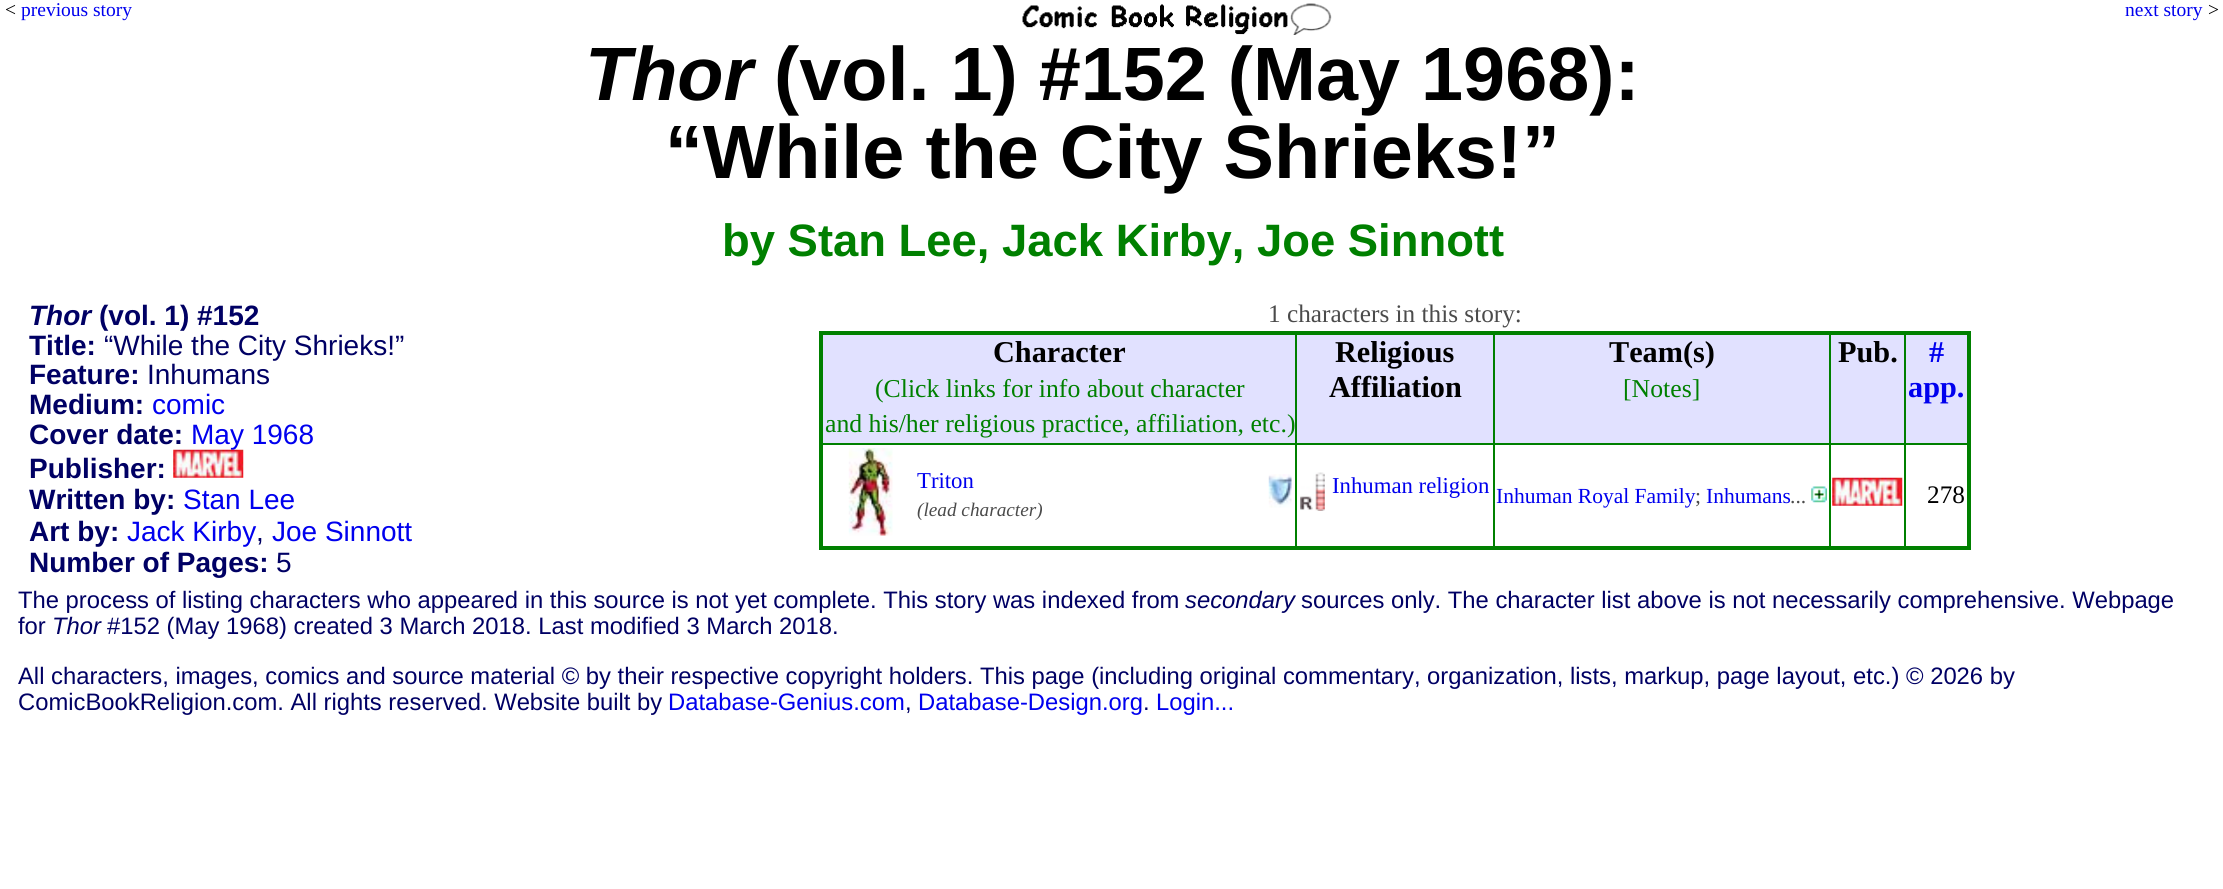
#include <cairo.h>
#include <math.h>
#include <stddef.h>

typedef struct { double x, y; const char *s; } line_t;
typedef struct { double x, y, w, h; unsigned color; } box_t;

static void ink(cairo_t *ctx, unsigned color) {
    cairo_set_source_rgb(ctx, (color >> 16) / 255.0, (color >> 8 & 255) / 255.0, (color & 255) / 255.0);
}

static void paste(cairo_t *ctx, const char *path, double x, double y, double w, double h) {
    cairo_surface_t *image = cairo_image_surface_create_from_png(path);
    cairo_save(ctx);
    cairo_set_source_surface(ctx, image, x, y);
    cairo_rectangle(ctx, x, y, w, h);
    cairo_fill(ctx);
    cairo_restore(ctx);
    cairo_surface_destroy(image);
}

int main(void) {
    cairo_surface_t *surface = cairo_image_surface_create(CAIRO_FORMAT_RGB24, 2223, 889);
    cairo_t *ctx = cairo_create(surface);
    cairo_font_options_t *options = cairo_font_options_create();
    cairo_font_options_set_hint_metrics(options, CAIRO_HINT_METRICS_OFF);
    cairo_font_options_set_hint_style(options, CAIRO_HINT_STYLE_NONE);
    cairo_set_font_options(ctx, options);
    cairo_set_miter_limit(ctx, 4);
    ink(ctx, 0xFFFFFF);
    cairo_paint(ctx);
    cairo_select_font_face(ctx, "Liberation Serif", CAIRO_FONT_SLANT_NORMAL, CAIRO_FONT_WEIGHT_NORMAL);
    cairo_set_font_size(ctx, 19.5);
    ink(ctx, 0x000000);
    cairo_move_to(ctx, 5, 16);
    cairo_show_text(ctx, "<");
    ink(ctx, 0x0000EE);
    cairo_move_to(ctx, 21, 16);
    cairo_show_text(ctx, "previous story");
    paste(ctx, "media/1.png", 1022, 3, 310, 32);
    cairo_move_to(ctx, 2125, 16);
    cairo_show_text(ctx, "next story");
    ink(ctx, 0x000000);
    cairo_move_to(ctx, 2208, 16);
    cairo_show_text(ctx, ">");
    cairo_select_font_face(ctx, "Liberation Sans", CAIRO_FONT_SLANT_ITALIC, CAIRO_FONT_WEIGHT_BOLD);
    cairo_set_font_size(ctx, 75.6);
    cairo_move_to(ctx, 585, 100);
    cairo_show_text(ctx, "Thor");
    cairo_select_font_face(ctx, "Liberation Sans", CAIRO_FONT_SLANT_NORMAL, CAIRO_FONT_WEIGHT_BOLD);
    cairo_move_to(ctx, 774, 100);
    cairo_show_text(ctx, "(vol. 1) #152 (May 1968):");
    cairo_move_to(ctx, 665, 178);
    cairo_show_text(ctx, "“While the City Shrieks!”");
    cairo_set_font_size(ctx, 45.4);
    ink(ctx, 0x008000);
    cairo_move_to(ctx, 722, 256);
    cairo_show_text(ctx, "by Stan Lee, Jack Kirby, Joe Sinnott");
    cairo_select_font_face(ctx, "Liberation Sans", CAIRO_FONT_SLANT_ITALIC, CAIRO_FONT_WEIGHT_BOLD);
    cairo_set_font_size(ctx, 28);
    ink(ctx, 0x000064);
    cairo_move_to(ctx, 29, 325);
    cairo_show_text(ctx, "Thor");
    cairo_select_font_face(ctx, "Liberation Sans", CAIRO_FONT_SLANT_NORMAL, CAIRO_FONT_WEIGHT_BOLD);
    cairo_move_to(ctx, 99, 325);
    cairo_show_text(ctx, "(vol. 1) #152");
    cairo_move_to(ctx, 29, 355);
    cairo_show_text(ctx, "Title:");
    cairo_select_font_face(ctx, "Liberation Sans", CAIRO_FONT_SLANT_NORMAL, CAIRO_FONT_WEIGHT_NORMAL);
    cairo_move_to(ctx, 104, 355);
    cairo_show_text(ctx, "“While the City Shrieks!”");
    cairo_select_font_face(ctx, "Liberation Sans", CAIRO_FONT_SLANT_NORMAL, CAIRO_FONT_WEIGHT_BOLD);
    cairo_move_to(ctx, 29, 384);
    cairo_show_text(ctx, "Feature:");
    cairo_select_font_face(ctx, "Liberation Sans", CAIRO_FONT_SLANT_NORMAL, CAIRO_FONT_WEIGHT_NORMAL);
    cairo_move_to(ctx, 147, 384);
    cairo_show_text(ctx, "Inhumans");
    cairo_select_font_face(ctx, "Liberation Sans", CAIRO_FONT_SLANT_NORMAL, CAIRO_FONT_WEIGHT_BOLD);
    cairo_move_to(ctx, 29, 414);
    cairo_show_text(ctx, "Medium:");
    cairo_select_font_face(ctx, "Liberation Sans", CAIRO_FONT_SLANT_NORMAL, CAIRO_FONT_WEIGHT_NORMAL);
    ink(ctx, 0x0000EE);
    cairo_move_to(ctx, 152, 414);
    cairo_show_text(ctx, "comic");
    cairo_select_font_face(ctx, "Liberation Sans", CAIRO_FONT_SLANT_NORMAL, CAIRO_FONT_WEIGHT_BOLD);
    ink(ctx, 0x000064);
    cairo_move_to(ctx, 29, 444);
    cairo_show_text(ctx, "Cover date:");
    cairo_select_font_face(ctx, "Liberation Sans", CAIRO_FONT_SLANT_NORMAL, CAIRO_FONT_WEIGHT_NORMAL);
    ink(ctx, 0x0000EE);
    cairo_move_to(ctx, 191, 444);
    cairo_show_text(ctx, "May 1968");
    cairo_select_font_face(ctx, "Liberation Sans", CAIRO_FONT_SLANT_NORMAL, CAIRO_FONT_WEIGHT_BOLD);
    ink(ctx, 0x000064);
    cairo_move_to(ctx, 29, 478);
    cairo_show_text(ctx, "Publisher:");
    paste(ctx, "media/2.png", 173, 449, 71, 29);
    cairo_move_to(ctx, 29, 509);
    cairo_show_text(ctx, "Written by:");
    cairo_select_font_face(ctx, "Liberation Sans", CAIRO_FONT_SLANT_NORMAL, CAIRO_FONT_WEIGHT_NORMAL);
    ink(ctx, 0x0000EE);
    cairo_move_to(ctx, 183, 509);
    cairo_show_text(ctx, "Stan Lee");
    cairo_select_font_face(ctx, "Liberation Sans", CAIRO_FONT_SLANT_NORMAL, CAIRO_FONT_WEIGHT_BOLD);
    ink(ctx, 0x000064);
    cairo_move_to(ctx, 29, 541);
    cairo_show_text(ctx, "Art by:");
    cairo_select_font_face(ctx, "Liberation Sans", CAIRO_FONT_SLANT_NORMAL, CAIRO_FONT_WEIGHT_NORMAL);
    ink(ctx, 0x0000EE);
    cairo_move_to(ctx, 127, 541);
    cairo_show_text(ctx, "Jack Kirby");
    ink(ctx, 0x000064);
    cairo_move_to(ctx, 256, 541);
    cairo_show_text(ctx, ",");
    ink(ctx, 0x0000EE);
    cairo_move_to(ctx, 272, 541);
    cairo_show_text(ctx, "Joe Sinnott");
    cairo_select_font_face(ctx, "Liberation Sans", CAIRO_FONT_SLANT_NORMAL, CAIRO_FONT_WEIGHT_BOLD);
    ink(ctx, 0x000064);
    cairo_move_to(ctx, 29, 572);
    cairo_show_text(ctx, "Number of Pages:");
    cairo_select_font_face(ctx, "Liberation Sans", CAIRO_FONT_SLANT_NORMAL, CAIRO_FONT_WEIGHT_NORMAL);
    cairo_move_to(ctx, 276, 572);
    cairo_show_text(ctx, "5");
    cairo_select_font_face(ctx, "Liberation Serif", CAIRO_FONT_SLANT_NORMAL, CAIRO_FONT_WEIGHT_NORMAL);
    cairo_set_font_size(ctx, 25.25);
    ink(ctx, 0x4B4B4B);
    cairo_move_to(ctx, 1268, 322);
    cairo_show_text(ctx, "1 characters in this story:");
    {
        static const box_t items[] = {
            {1904, 443, 65, 2, 0x008000},
            {1904, 443, 2, 105, 0x008000},
            {1829, 443, 77, 2, 0x008000},
            {1829, 443, 2, 105, 0x008000},
            {1493, 443, 338, 2, 0x008000},
            {1493, 443, 2, 105, 0x008000},
            {1295, 443, 200, 2, 0x008000},
            {1295, 443, 2, 105, 0x008000},
            {821, 443, 476, 2, 0x008000},
            {1295, 331, 2, 114, 0x008000},
            {1493, 331, 2, 114, 0x008000},
            {1829, 331, 2, 114, 0x008000},
            {1904, 331, 2, 114, 0x008000},
            {819, 331, 1152, 4, 0x008000},
            {1967, 331, 4, 219, 0x008000},
            {819, 546, 1152, 4, 0x008000},
            {819, 331, 4, 219, 0x008000},
            {823, 335, 472, 108, 0xE1E1FF},
        };
        for (size_t i = 0; i < sizeof items / sizeof *items; i++) {
            ink(ctx, items[i].color);
            cairo_rectangle(ctx, items[i].x, items[i].y, items[i].w, items[i].h);
            cairo_fill(ctx);
        }
    }
    cairo_select_font_face(ctx, "Liberation Serif", CAIRO_FONT_SLANT_NORMAL, CAIRO_FONT_WEIGHT_BOLD);
    cairo_set_font_size(ctx, 30.25);
    ink(ctx, 0x000000);
    cairo_move_to(ctx, 993, 362);
    cairo_show_text(ctx, "Character");
    cairo_select_font_face(ctx, "Liberation Serif", CAIRO_FONT_SLANT_NORMAL, CAIRO_FONT_WEIGHT_NORMAL);
    cairo_set_font_size(ctx, 25.75);
    ink(ctx, 0x008000);
    cairo_move_to(ctx, 875, 397);
    cairo_show_text(ctx, "(Click links for info about character");
    cairo_move_to(ctx, 825, 432);
    cairo_show_text(ctx, "and his/her religious practice, affiliation, etc.)");
    ink(ctx, 0xE1E1FF);
    cairo_rectangle(ctx, 1297, 335, 196, 108);
    cairo_fill(ctx);
    cairo_select_font_face(ctx, "Liberation Serif", CAIRO_FONT_SLANT_NORMAL, CAIRO_FONT_WEIGHT_BOLD);
    cairo_set_font_size(ctx, 30.25);
    ink(ctx, 0x000000);
    cairo_move_to(ctx, 1335, 362);
    cairo_show_text(ctx, "Religious");
    cairo_move_to(ctx, 1329, 397);
    cairo_show_text(ctx, "Affiliation");
    ink(ctx, 0xE1E1FF);
    cairo_rectangle(ctx, 1495, 335, 334, 108);
    cairo_fill(ctx);
    ink(ctx, 0x000000);
    cairo_move_to(ctx, 1609, 362);
    cairo_show_text(ctx, "Team(s)");
    cairo_select_font_face(ctx, "Liberation Serif", CAIRO_FONT_SLANT_NORMAL, CAIRO_FONT_WEIGHT_NORMAL);
    cairo_set_font_size(ctx, 25.75);
    ink(ctx, 0x008000);
    cairo_move_to(ctx, 1623, 397);
    cairo_show_text(ctx, "[Notes]");
    ink(ctx, 0xE1E1FF);
    cairo_rectangle(ctx, 1831, 335, 73, 108);
    cairo_fill(ctx);
    cairo_select_font_face(ctx, "Liberation Serif", CAIRO_FONT_SLANT_NORMAL, CAIRO_FONT_WEIGHT_BOLD);
    cairo_set_font_size(ctx, 30.25);
    ink(ctx, 0x000000);
    cairo_move_to(ctx, 1838, 362);
    cairo_show_text(ctx, "Pub.");
    ink(ctx, 0xE1E1FF);
    cairo_rectangle(ctx, 1906, 335, 61, 108);
    cairo_fill(ctx);
    ink(ctx, 0x0000EE);
    cairo_move_to(ctx, 1929, 362);
    cairo_show_text(ctx, "#");
    cairo_move_to(ctx, 1908, 397);
    cairo_show_text(ctx, "app.");
    paste(ctx, "media/3.png", 848, 448, 45, 88);
    cairo_select_font_face(ctx, "Liberation Serif", CAIRO_FONT_SLANT_NORMAL, CAIRO_FONT_WEIGHT_NORMAL);
    cairo_set_font_size(ctx, 22.75);
    cairo_move_to(ctx, 917, 488);
    cairo_show_text(ctx, "Triton");
    cairo_select_font_face(ctx, "Liberation Serif", CAIRO_FONT_SLANT_ITALIC, CAIRO_FONT_WEIGHT_NORMAL);
    cairo_set_font_size(ctx, 19.25);
    ink(ctx, 0x4B4B4B);
    cairo_move_to(ctx, 917, 516);
    cairo_show_text(ctx, "(lead character)");
    paste(ctx, "media/4.png", 1268, 474, 24, 34);
    paste(ctx, "media/5.png", 1300, 472, 25, 39);
    cairo_select_font_face(ctx, "Liberation Serif", CAIRO_FONT_SLANT_NORMAL, CAIRO_FONT_WEIGHT_NORMAL);
    cairo_set_font_size(ctx, 22.75);
    ink(ctx, 0x0000EE);
    cairo_move_to(ctx, 1332, 493);
    cairo_show_text(ctx, "Inhuman religion");
    cairo_set_font_size(ctx, 21.5);
    cairo_move_to(ctx, 1496, 503);
    cairo_show_text(ctx, "Inhuman Royal Family");
    ink(ctx, 0x4B4B4B);
    cairo_move_to(ctx, 1695, 503);
    cairo_show_text(ctx, ";");
    ink(ctx, 0x0000EE);
    cairo_move_to(ctx, 1706, 503);
    cairo_show_text(ctx, "Inhumans");
    ink(ctx, 0x4B4B4B);
    cairo_move_to(ctx, 1790, 503);
    cairo_show_text(ctx, "...");
    paste(ctx, "media/6.png", 1811, 486, 16, 17);
    paste(ctx, "media/7.png", 1832, 477, 71, 29);
    cairo_set_font_size(ctx, 25.25);
    ink(ctx, 0x000000);
    cairo_move_to(ctx, 1927, 503);
    cairo_show_text(ctx, "278");
    cairo_select_font_face(ctx, "Liberation Sans", CAIRO_FONT_SLANT_NORMAL, CAIRO_FONT_WEIGHT_NORMAL);
    cairo_set_font_size(ctx, 23.8);
    ink(ctx, 0x000064);
    cairo_move_to(ctx, 18, 608);
    cairo_show_text(ctx, "The process of listing characters who appeared in this source is not yet complete. This story was indexed from");
    cairo_select_font_face(ctx, "Liberation Sans", CAIRO_FONT_SLANT_ITALIC, CAIRO_FONT_WEIGHT_NORMAL);
    cairo_move_to(ctx, 1185, 608);
    cairo_show_text(ctx, "secondary");
    cairo_select_font_face(ctx, "Liberation Sans", CAIRO_FONT_SLANT_NORMAL, CAIRO_FONT_WEIGHT_NORMAL);
    cairo_move_to(ctx, 1301, 608);
    cairo_show_text(ctx, "sources only. The character list above is not necessarily comprehensive. Webpage");
    cairo_move_to(ctx, 18, 634);
    cairo_show_text(ctx, "for");
    cairo_select_font_face(ctx, "Liberation Sans", CAIRO_FONT_SLANT_ITALIC, CAIRO_FONT_WEIGHT_NORMAL);
    cairo_move_to(ctx, 52, 634);
    cairo_show_text(ctx, "Thor");
    cairo_select_font_face(ctx, "Liberation Sans", CAIRO_FONT_SLANT_NORMAL, CAIRO_FONT_WEIGHT_NORMAL);
    {
        static const line_t items[] = {
            {107, 634, "#152 (May 1968) created 3 March 2018. Last modified 3 March 2018."},
            {18, 684, "All characters, images, comics and source material © by their respective copyright holders. This page (including original commentary, organization, lists, markup, page layout, etc.) © 2026 by"},
            {18, 710, "ComicBookReligion.com. All rights reserved. Website built by"},
        };
        for (size_t i = 0; i < sizeof items / sizeof *items; i++) {
            cairo_move_to(ctx, items[i].x, items[i].y);
            cairo_show_text(ctx, items[i].s);
        }
    }
    ink(ctx, 0x0000EE);
    cairo_move_to(ctx, 668, 710);
    cairo_show_text(ctx, "Database-Genius.com");
    ink(ctx, 0x000064);
    cairo_move_to(ctx, 905, 710);
    cairo_show_text(ctx, ",");
    ink(ctx, 0x0000EE);
    cairo_move_to(ctx, 918, 710);
    cairo_show_text(ctx, "Database-Design.org");
    ink(ctx, 0x000064);
    cairo_move_to(ctx, 1143, 710);
    cairo_show_text(ctx, ".");
    ink(ctx, 0x0000EE);
    cairo_move_to(ctx, 1156, 710);
    cairo_show_text(ctx, "Login...");
    cairo_surface_write_to_png(surface, "image.png");
    cairo_font_options_destroy(options);
    cairo_destroy(ctx);
    cairo_surface_destroy(surface);
    return 0;
}
